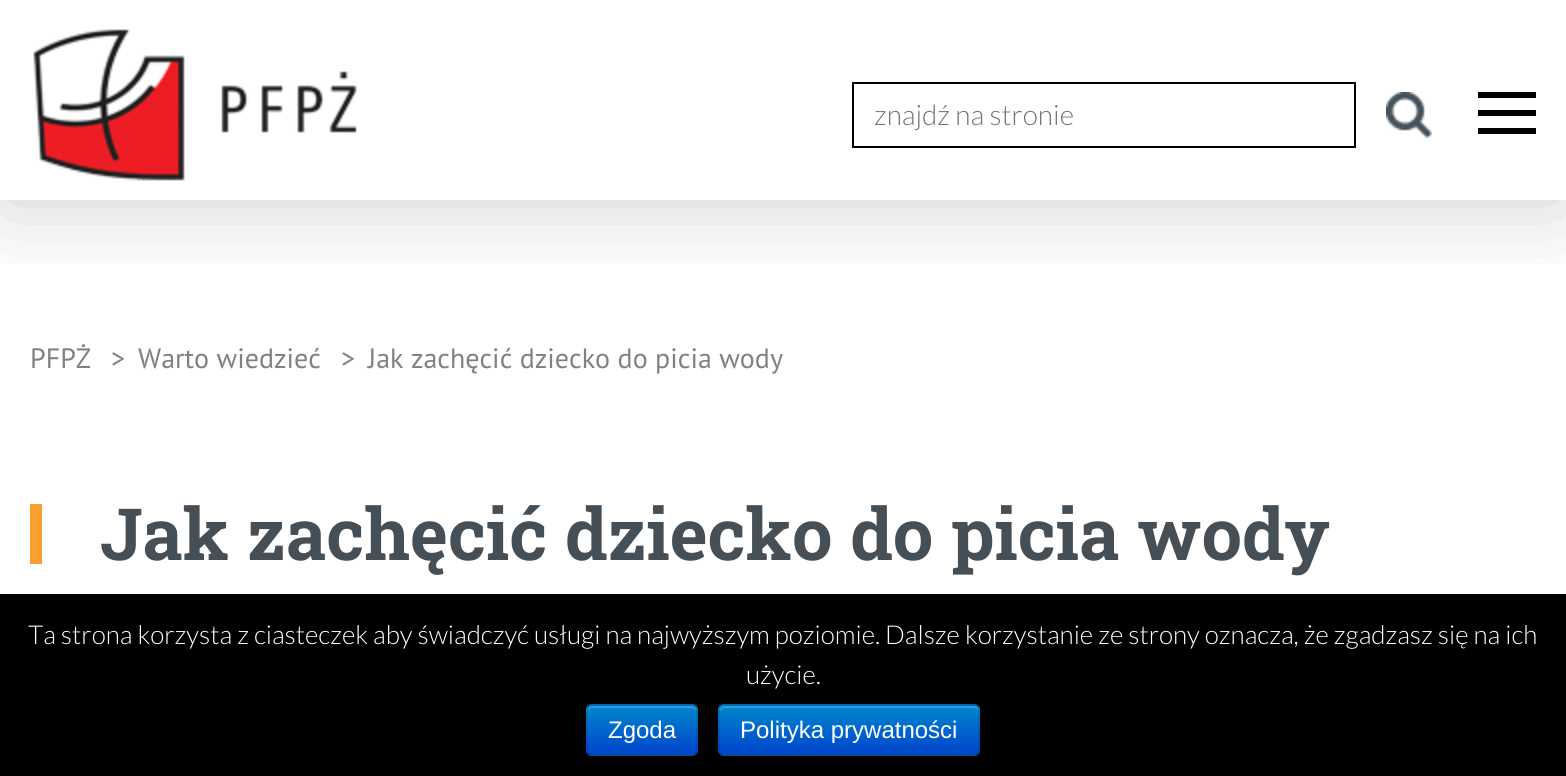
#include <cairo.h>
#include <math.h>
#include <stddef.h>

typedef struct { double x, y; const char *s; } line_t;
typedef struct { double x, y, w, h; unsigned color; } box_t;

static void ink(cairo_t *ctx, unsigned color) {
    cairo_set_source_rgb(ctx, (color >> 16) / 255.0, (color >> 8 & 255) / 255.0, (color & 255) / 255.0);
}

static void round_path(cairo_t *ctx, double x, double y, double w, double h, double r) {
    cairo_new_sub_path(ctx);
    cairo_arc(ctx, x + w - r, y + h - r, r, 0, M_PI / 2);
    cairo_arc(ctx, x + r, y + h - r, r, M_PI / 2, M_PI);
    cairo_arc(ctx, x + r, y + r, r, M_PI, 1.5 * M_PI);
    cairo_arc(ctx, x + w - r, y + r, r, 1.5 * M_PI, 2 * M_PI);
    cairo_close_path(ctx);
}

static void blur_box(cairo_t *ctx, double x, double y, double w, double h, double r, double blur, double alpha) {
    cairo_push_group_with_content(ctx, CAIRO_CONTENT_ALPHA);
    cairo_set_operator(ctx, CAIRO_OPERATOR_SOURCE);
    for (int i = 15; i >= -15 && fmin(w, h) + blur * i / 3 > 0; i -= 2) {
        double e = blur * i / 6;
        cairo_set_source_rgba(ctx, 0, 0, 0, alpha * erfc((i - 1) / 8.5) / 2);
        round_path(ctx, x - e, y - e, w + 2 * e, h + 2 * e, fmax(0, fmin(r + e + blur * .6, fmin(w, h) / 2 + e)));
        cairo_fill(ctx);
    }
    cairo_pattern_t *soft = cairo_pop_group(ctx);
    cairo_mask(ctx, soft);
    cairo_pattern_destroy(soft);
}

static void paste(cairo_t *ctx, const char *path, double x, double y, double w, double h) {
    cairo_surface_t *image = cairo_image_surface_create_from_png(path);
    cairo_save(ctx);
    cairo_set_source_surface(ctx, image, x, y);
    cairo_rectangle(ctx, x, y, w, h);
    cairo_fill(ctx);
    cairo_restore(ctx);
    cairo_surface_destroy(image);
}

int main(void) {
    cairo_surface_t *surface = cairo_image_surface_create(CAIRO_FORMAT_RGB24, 1566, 776);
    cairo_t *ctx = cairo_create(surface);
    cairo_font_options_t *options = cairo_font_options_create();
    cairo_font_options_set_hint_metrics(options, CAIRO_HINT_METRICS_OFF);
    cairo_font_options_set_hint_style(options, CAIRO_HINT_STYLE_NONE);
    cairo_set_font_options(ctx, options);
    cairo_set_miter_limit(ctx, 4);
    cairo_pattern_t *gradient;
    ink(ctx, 0xFFFFFF);
    cairo_paint(ctx);
    cairo_save(ctx);
    cairo_rectangle(ctx, 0, 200, 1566, 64);
    cairo_clip(ctx);
    ink(ctx, 0x000000);
    blur_box(ctx, 0, 0, 1566, 200, 0, 50, 0.2);
    cairo_restore(ctx);
    paste(ctx, "media/1.png", 33, 29, 324, 152);
    cairo_rectangle(ctx, 853, 83, 502, 64);
    ink(ctx, 0x000000);
    cairo_stroke(ctx);
    cairo_select_font_face(ctx, "Lato Light", CAIRO_FONT_SLANT_NORMAL, CAIRO_FONT_WEIGHT_NORMAL);
    cairo_set_font_size(ctx, 28);
    ink(ctx, 0x757575);
    cairo_move_to(ctx, 874, 125);
    cairo_show_text(ctx, "znajdź na stronie");
    paste(ctx, "media/2.png", 1386, 92, 46, 46);
    {
        static const box_t items[] = {
            {1478, 92, 58, 6, 0x000000},
            {1478, 110, 58, 6, 0x000000},
            {1478, 128, 58, 6, 0x000000},
        };
        for (size_t i = 0; i < sizeof items / sizeof *items; i++) {
            ink(ctx, items[i].color);
            cairo_rectangle(ctx, items[i].x, items[i].y, items[i].w, items[i].h);
            cairo_fill(ctx);
        }
    }
    cairo_select_font_face(ctx, "PT Sans", CAIRO_FONT_SLANT_NORMAL, CAIRO_FONT_WEIGHT_NORMAL);
    ink(ctx, 0x818181);
    {
        static const line_t items[] = {
            {30, 368, "PFPŻ"},
            {111, 368, ">"},
            {138, 368, "Warto wiedzieć"},
            {341, 368, ">"},
            {368, 368, "Jak zachęcić dziecko do picia wody"},
        };
        for (size_t i = 0; i < sizeof items / sizeof *items; i++) {
            cairo_move_to(ctx, items[i].x, items[i].y);
            cairo_show_text(ctx, items[i].s);
        }
    }
    ink(ctx, 0xF79F31);
    cairo_rectangle(ctx, 30, 504, 12, 60);
    cairo_fill(ctx);
    cairo_select_font_face(ctx, "Roboto Slab", CAIRO_FONT_SLANT_NORMAL, CAIRO_FONT_WEIGHT_BOLD);
    cairo_set_font_size(ctx, 72);
    ink(ctx, 0x464F55);
    cairo_move_to(ctx, 100, 560);
    cairo_show_text(ctx, "Jak zachęcić dziecko do picia wody");
    ink(ctx, 0x000000);
    cairo_rectangle(ctx, 0, 594, 1566, 182);
    cairo_fill(ctx);
    cairo_select_font_face(ctx, "Lato Light", CAIRO_FONT_SLANT_NORMAL, CAIRO_FONT_WEIGHT_NORMAL);
    cairo_set_font_size(ctx, 26);
    ink(ctx, 0xFFFFFF);
    cairo_move_to(ctx, 28, 644);
    cairo_show_text(ctx, "Ta strona korzysta z ciasteczek aby świadczyć usługi na najwyższym poziomie. Dalsze korzystanie ze strony oznacza, że zgadzasz się na ich");
    cairo_move_to(ctx, 746, 684);
    cairo_show_text(ctx, "użycie.");
    ink(ctx, 0x006DCC);
    round_path(ctx, 586, 704, 112, 52, 6);
    cairo_fill(ctx);
    cairo_save(ctx);
    round_path(ctx, 586, 704, 112, 52, 6);
    cairo_clip(ctx);
    gradient = cairo_pattern_create_linear(642, 706, 642, 754);
    cairo_pattern_add_color_stop_rgba(gradient, 0, 0, 0.533, 0.8, 1);
    cairo_pattern_add_color_stop_rgba(gradient, 1, 0, 0.267, 0.8, 1);
    cairo_set_source(ctx, gradient);
    cairo_pattern_destroy(gradient);
    cairo_rectangle(ctx, 586, 706, 112, 48);
    cairo_fill(ctx);
    cairo_restore(ctx);
    cairo_set_source_rgba(ctx, 1, 1, 1, 0.2);
    cairo_new_path(ctx);
    cairo_move_to(ctx, 592, 708);
    cairo_line_to(ctx, 692, 708);
    cairo_curve_to(ctx, 694, 708, 696, 710, 696, 712);
    cairo_line_to(ctx, 696, 710);
    cairo_curve_to(ctx, 696, 708, 694, 706, 692, 706);
    cairo_line_to(ctx, 592, 706);
    cairo_curve_to(ctx, 590, 706, 588, 708, 588, 710);
    cairo_line_to(ctx, 588, 712);
    cairo_curve_to(ctx, 588, 710, 590, 708, 592, 708);
    cairo_close_path(ctx);
    cairo_fill(ctx);
    cairo_new_path(ctx);
    cairo_move_to(ctx, 695.5, 753.5);
    cairo_curve_to(ctx, 694.5, 754.5, 693.5, 755, 692, 755);
    cairo_line_to(ctx, 592, 755);
    cairo_curve_to(ctx, 590.5, 755, 589.5, 754.5, 588.5, 753.5);
    cairo_set_source_rgba(ctx, 0, 0, 0, 0.25);
    cairo_stroke(ctx);
    cairo_new_path(ctx);
    cairo_move_to(ctx, 588.5, 753.5);
    cairo_curve_to(ctx, 586, 751, 587, 746, 587, 743.5);
    cairo_line_to(ctx, 587, 730);
    cairo_curve_to(ctx, 587, 702.5, 582, 705, 608.5, 705);
    cairo_line_to(ctx, 675.5, 705);
    cairo_curve_to(ctx, 702, 705, 697, 702.5, 697, 730);
    cairo_line_to(ctx, 697, 743.5);
    cairo_curve_to(ctx, 697, 746, 698, 751, 695.5, 753.5);
    cairo_set_source_rgba(ctx, 0, 0, 0, 0.1);
    cairo_stroke(ctx);
    cairo_select_font_face(ctx, "Liberation Sans", CAIRO_FONT_SLANT_NORMAL, CAIRO_FONT_WEIGHT_NORMAL);
    cairo_set_font_size(ctx, 24);
    ink(ctx, 0xFFFFFF);
    cairo_move_to(ctx, 608, 738);
    cairo_show_text(ctx, "Zgoda");
    ink(ctx, 0x006DCC);
    round_path(ctx, 718, 704, 262, 52, 6);
    cairo_fill(ctx);
    cairo_save(ctx);
    round_path(ctx, 718, 704, 262, 52, 6);
    cairo_clip(ctx);
    gradient = cairo_pattern_create_linear(849, 706, 849, 754);
    cairo_pattern_add_color_stop_rgba(gradient, 0, 0, 0.533, 0.8, 1);
    cairo_pattern_add_color_stop_rgba(gradient, 1, 0, 0.267, 0.8, 1);
    cairo_set_source(ctx, gradient);
    cairo_pattern_destroy(gradient);
    cairo_rectangle(ctx, 718, 706, 262, 48);
    cairo_fill(ctx);
    cairo_restore(ctx);
    cairo_set_source_rgba(ctx, 1, 1, 1, 0.2);
    cairo_new_path(ctx);
    cairo_move_to(ctx, 724, 708);
    cairo_line_to(ctx, 974, 708);
    cairo_curve_to(ctx, 976, 708, 978, 710, 978, 712);
    cairo_line_to(ctx, 978, 710);
    cairo_curve_to(ctx, 978, 708, 976, 706, 974, 706);
    cairo_line_to(ctx, 724, 706);
    cairo_curve_to(ctx, 722, 706, 720, 708, 720, 710);
    cairo_line_to(ctx, 720, 712);
    cairo_curve_to(ctx, 720, 710, 722, 708, 724, 708);
    cairo_close_path(ctx);
    cairo_fill(ctx);
    cairo_new_path(ctx);
    cairo_move_to(ctx, 977.5, 753.5);
    cairo_curve_to(ctx, 976.5, 754.5, 975.5, 755, 974, 755);
    cairo_line_to(ctx, 723.5, 755);
    cairo_line_to(ctx, 720.5, 753.5);
    cairo_set_source_rgba(ctx, 0, 0, 0, 0.25);
    cairo_stroke(ctx);
    cairo_new_path(ctx);
    cairo_move_to(ctx, 720.5, 753.5);
    cairo_curve_to(ctx, 719.5, 752.5, 719, 751.5, 719, 750);
    cairo_line_to(ctx, 719, 710);
    cairo_curve_to(ctx, 719, 708.5, 719.5, 707.5, 720.5, 706.5);
    cairo_curve_to(ctx, 721.5, 705.5, 722.5, 705, 724, 705);
    cairo_line_to(ctx, 974, 705);
    cairo_curve_to(ctx, 975.5, 705, 976.5, 705.5, 977.5, 706.5);
    cairo_curve_to(ctx, 978.5, 707.5, 979, 708.5, 979, 710);
    cairo_line_to(ctx, 979, 750);
    cairo_curve_to(ctx, 979, 751.5, 978.5, 752.5, 977.5, 753.5);
    cairo_set_source_rgba(ctx, 0, 0, 0, 0.1);
    cairo_stroke(ctx);
    ink(ctx, 0xFFFFFF);
    cairo_move_to(ctx, 740, 738);
    cairo_show_text(ctx, "Polityka prywatności");
    cairo_surface_write_to_png(surface, "image.png");
    cairo_font_options_destroy(options);
    cairo_destroy(ctx);
    cairo_surface_destroy(surface);
    return 0;
}
